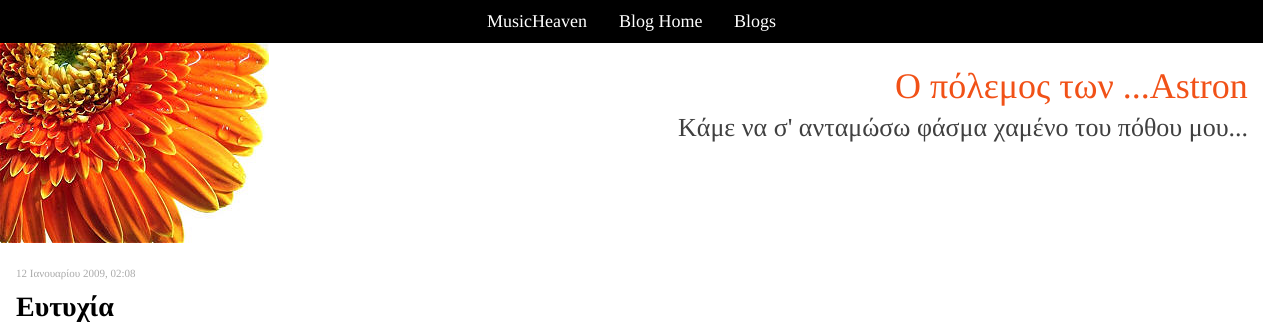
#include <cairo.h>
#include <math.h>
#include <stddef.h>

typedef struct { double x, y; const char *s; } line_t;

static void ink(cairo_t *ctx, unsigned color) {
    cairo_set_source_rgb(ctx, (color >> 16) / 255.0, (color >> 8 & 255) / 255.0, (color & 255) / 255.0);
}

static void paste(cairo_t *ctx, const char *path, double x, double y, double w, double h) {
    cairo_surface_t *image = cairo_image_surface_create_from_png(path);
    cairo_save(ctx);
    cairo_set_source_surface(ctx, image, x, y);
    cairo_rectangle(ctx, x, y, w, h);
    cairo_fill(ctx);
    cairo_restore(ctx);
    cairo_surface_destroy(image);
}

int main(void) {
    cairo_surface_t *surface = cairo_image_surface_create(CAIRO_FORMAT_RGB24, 1263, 333);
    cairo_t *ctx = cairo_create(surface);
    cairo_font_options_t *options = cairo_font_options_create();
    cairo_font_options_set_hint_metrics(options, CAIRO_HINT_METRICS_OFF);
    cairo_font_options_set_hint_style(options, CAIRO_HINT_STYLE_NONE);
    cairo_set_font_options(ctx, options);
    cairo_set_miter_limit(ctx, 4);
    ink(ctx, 0xFFFFFF);
    cairo_paint(ctx);
    ink(ctx, 0x000000);
    cairo_rectangle(ctx, 0, 0, 1263, 43);
    cairo_fill(ctx);
    cairo_select_font_face(ctx, "Liberation Serif", CAIRO_FONT_SLANT_NORMAL, CAIRO_FONT_WEIGHT_NORMAL);
    cairo_set_font_size(ctx, 18);
    ink(ctx, 0xFFFFFF);
    {
        static const line_t items[] = {
            {487, 27, "MusicHeaven"},
            {619, 27, "Blog Home"},
            {734, 27, "Blogs"},
        };
        for (size_t i = 0; i < sizeof items / sizeof *items; i++) {
            cairo_move_to(ctx, items[i].x, items[i].y);
            cairo_show_text(ctx, items[i].s);
        }
    }
    paste(ctx, "media/1.png", 0, 43, 269, 200);
    cairo_set_font_size(ctx, 36);
    ink(ctx, 0xF15117);
    cairo_move_to(ctx, 895, 98);
    cairo_show_text(ctx, "Ο πόλεμος των ...Astron");
    cairo_set_font_size(ctx, 26);
    ink(ctx, 0x404040);
    cairo_move_to(ctx, 678, 136);
    cairo_show_text(ctx, "Κάμε να σ' ανταμώσω φάσμα χαμένο του πόθου μου...");
    cairo_set_font_size(ctx, 11);
    ink(ctx, 0xAAAAAA);
    cairo_move_to(ctx, 16, 277);
    cairo_show_text(ctx, "12 Ιανουαρίου 2009, 02:08");
    cairo_select_font_face(ctx, "Liberation Serif", CAIRO_FONT_SLANT_NORMAL, CAIRO_FONT_WEIGHT_BOLD);
    cairo_set_font_size(ctx, 28);
    ink(ctx, 0x000000);
    cairo_move_to(ctx, 16, 316);
    cairo_show_text(ctx, "Ευτυχία");
    cairo_surface_write_to_png(surface, "image.png");
    cairo_font_options_destroy(options);
    cairo_destroy(ctx);
    cairo_surface_destroy(surface);
    return 0;
}
